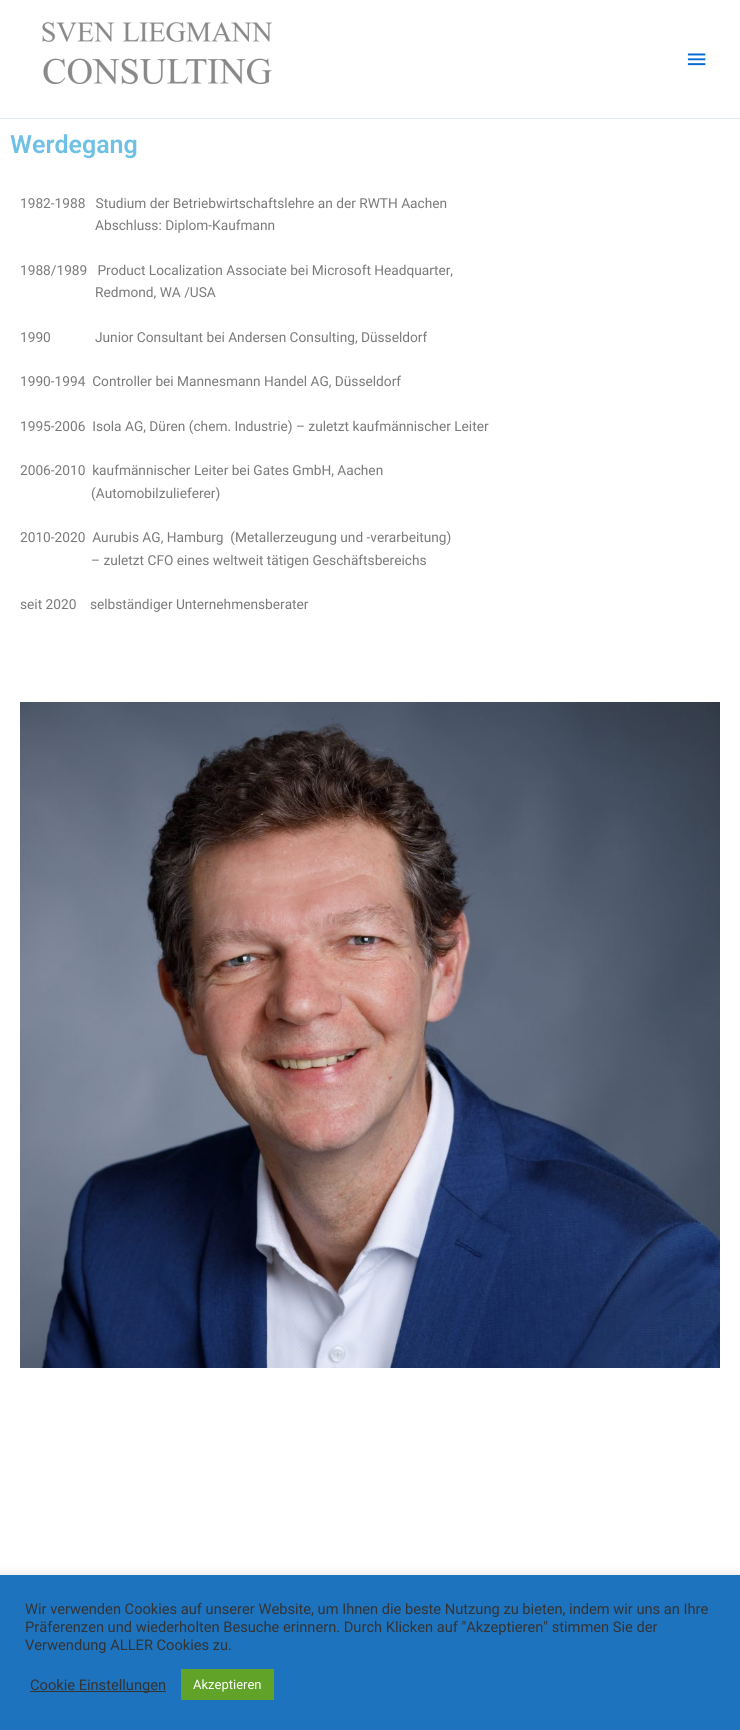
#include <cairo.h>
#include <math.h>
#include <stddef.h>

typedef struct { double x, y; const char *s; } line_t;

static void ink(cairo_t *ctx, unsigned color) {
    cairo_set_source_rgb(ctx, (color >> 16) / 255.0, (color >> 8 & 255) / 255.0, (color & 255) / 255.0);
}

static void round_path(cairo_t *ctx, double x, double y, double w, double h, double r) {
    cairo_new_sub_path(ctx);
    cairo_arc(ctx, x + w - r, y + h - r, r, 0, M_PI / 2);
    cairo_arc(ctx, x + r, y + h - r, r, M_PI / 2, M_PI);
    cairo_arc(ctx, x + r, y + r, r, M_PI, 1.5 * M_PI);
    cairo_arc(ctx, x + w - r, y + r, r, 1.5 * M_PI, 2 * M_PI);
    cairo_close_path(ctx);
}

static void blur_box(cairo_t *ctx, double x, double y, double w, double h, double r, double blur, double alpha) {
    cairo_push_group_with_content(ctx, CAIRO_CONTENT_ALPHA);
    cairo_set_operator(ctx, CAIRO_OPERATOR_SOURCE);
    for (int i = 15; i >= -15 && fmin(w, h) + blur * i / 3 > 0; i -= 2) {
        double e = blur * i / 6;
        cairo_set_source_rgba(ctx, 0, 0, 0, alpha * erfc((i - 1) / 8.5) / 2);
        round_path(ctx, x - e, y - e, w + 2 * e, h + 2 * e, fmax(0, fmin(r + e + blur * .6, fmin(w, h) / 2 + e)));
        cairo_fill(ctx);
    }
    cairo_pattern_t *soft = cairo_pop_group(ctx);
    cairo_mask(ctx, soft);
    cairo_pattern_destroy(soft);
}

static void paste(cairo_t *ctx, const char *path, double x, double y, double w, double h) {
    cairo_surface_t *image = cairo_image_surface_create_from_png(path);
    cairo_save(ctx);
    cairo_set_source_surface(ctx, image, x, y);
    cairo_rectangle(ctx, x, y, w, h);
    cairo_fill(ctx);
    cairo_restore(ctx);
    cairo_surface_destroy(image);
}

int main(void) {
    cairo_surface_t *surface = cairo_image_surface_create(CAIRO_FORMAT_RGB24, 740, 1730);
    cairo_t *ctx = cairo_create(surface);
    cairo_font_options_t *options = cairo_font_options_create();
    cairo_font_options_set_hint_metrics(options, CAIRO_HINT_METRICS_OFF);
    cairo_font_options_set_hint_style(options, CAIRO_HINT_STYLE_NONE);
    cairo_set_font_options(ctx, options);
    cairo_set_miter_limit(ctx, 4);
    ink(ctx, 0xFFFFFF);
    cairo_paint(ctx);
    ink(ctx, 0xE2E8F0);
    cairo_rectangle(ctx, 0, 118, 740, 1);
    cairo_fill(ctx);
    paste(ctx, "media/1.png", 42, 21, 231, 64);
    paste(ctx, "media/2.png", 687, 53, 19, 13);
    cairo_select_font_face(ctx, "Roboto SemiBold", CAIRO_FONT_SLANT_NORMAL, CAIRO_FONT_WEIGHT_NORMAL);
    cairo_set_font_size(ctx, 25);
    ink(ctx, 0x6EC1E4);
    cairo_move_to(ctx, 10, 153);
    cairo_show_text(ctx, "Werdegang");
    cairo_select_font_face(ctx, "Roboto", CAIRO_FONT_SLANT_NORMAL, CAIRO_FONT_WEIGHT_NORMAL);
    cairo_set_font_size(ctx, 13.7);
    ink(ctx, 0x7A7A7A);
    {
        static const line_t items[] = {
            {20, 208, "1982-1988   Studium der Betriebwirtschaftslehre an der RWTH Aachen"},
            {95, 230, "Abschluss: Diplom-Kaufmann"},
            {20, 275, "1988/1989   Product Localization Associate bei Microsoft Headquarter,"},
            {95, 297, "Redmond, WA /USA"},
            {20, 342, "1990             Junior Consultant bei Andersen Consulting, Düsseldorf"},
            {20, 386, "1990-1994  Controller bei Mannesmann Handel AG, Düsseldorf"},
            {20, 431, "1995-2006  Isola AG, Düren (chem. Industrie) – zuletzt kaufmännischer Leiter"},
            {20, 475, "2006-2010  kaufmännischer Leiter bei Gates GmbH, Aachen"},
            {91, 498, "(Automobilzulieferer)"},
            {20, 542, "2010-2020  Aurubis AG, Hamburg  (Metallerzeugung und -verarbeitung)"},
            {91, 565, "– zuletzt CFO eines weltweit tätigen Geschäftsbereichs"},
            {20, 609, "seit 2020    selbständiger Unternehmensberater"},
        };
        for (size_t i = 0; i < sizeof items / sizeof *items; i++) {
            cairo_move_to(ctx, items[i].x, items[i].y);
            cairo_show_text(ctx, items[i].s);
        }
    }
    paste(ctx, "media/3.png", 20, 702, 700, 666);
    ink(ctx, 0xACABAB);
    blur_box(ctx, 0, 1574, 740, 155, 0, 5, 0.3);
    ink(ctx, 0x1E73BE);
    cairo_rectangle(ctx, 0, 1575, 740, 155);
    cairo_fill(ctx);
    cairo_set_font_size(ctx, 14.65);
    ink(ctx, 0x333333);
    {
        static const line_t items[] = {
            {25, 1614, "Wir verwenden Cookies auf unserer Website, um Ihnen die beste Nutzung zu bieten, indem wir uns an Ihre"},
            {25, 1632, "Präferenzen und wiederholten Besuche erinnern. Durch Klicken auf \"Akzeptieren\" stimmen Sie der"},
            {25, 1650, "Verwendung ALLER Cookies zu."},
        };
        for (size_t i = 0; i < sizeof items / sizeof *items; i++) {
            cairo_move_to(ctx, items[i].x, items[i].y);
            cairo_show_text(ctx, items[i].s);
        }
    }
    cairo_rectangle(ctx, 30, 1691, 136, 1);
    cairo_fill(ctx);
    cairo_move_to(ctx, 30, 1690);
    cairo_show_text(ctx, "Cookie Einstellungen");
    ink(ctx, 0x61A229);
    cairo_rectangle(ctx, 181, 1669, 93, 31);
    cairo_fill(ctx);
    cairo_set_font_size(ctx, 13);
    ink(ctx, 0xFFFFFF);
    cairo_move_to(ctx, 193, 1689);
    cairo_show_text(ctx, "Akzeptieren");
    cairo_surface_write_to_png(surface, "image.png");
    cairo_font_options_destroy(options);
    cairo_destroy(ctx);
    cairo_surface_destroy(surface);
    return 0;
}
